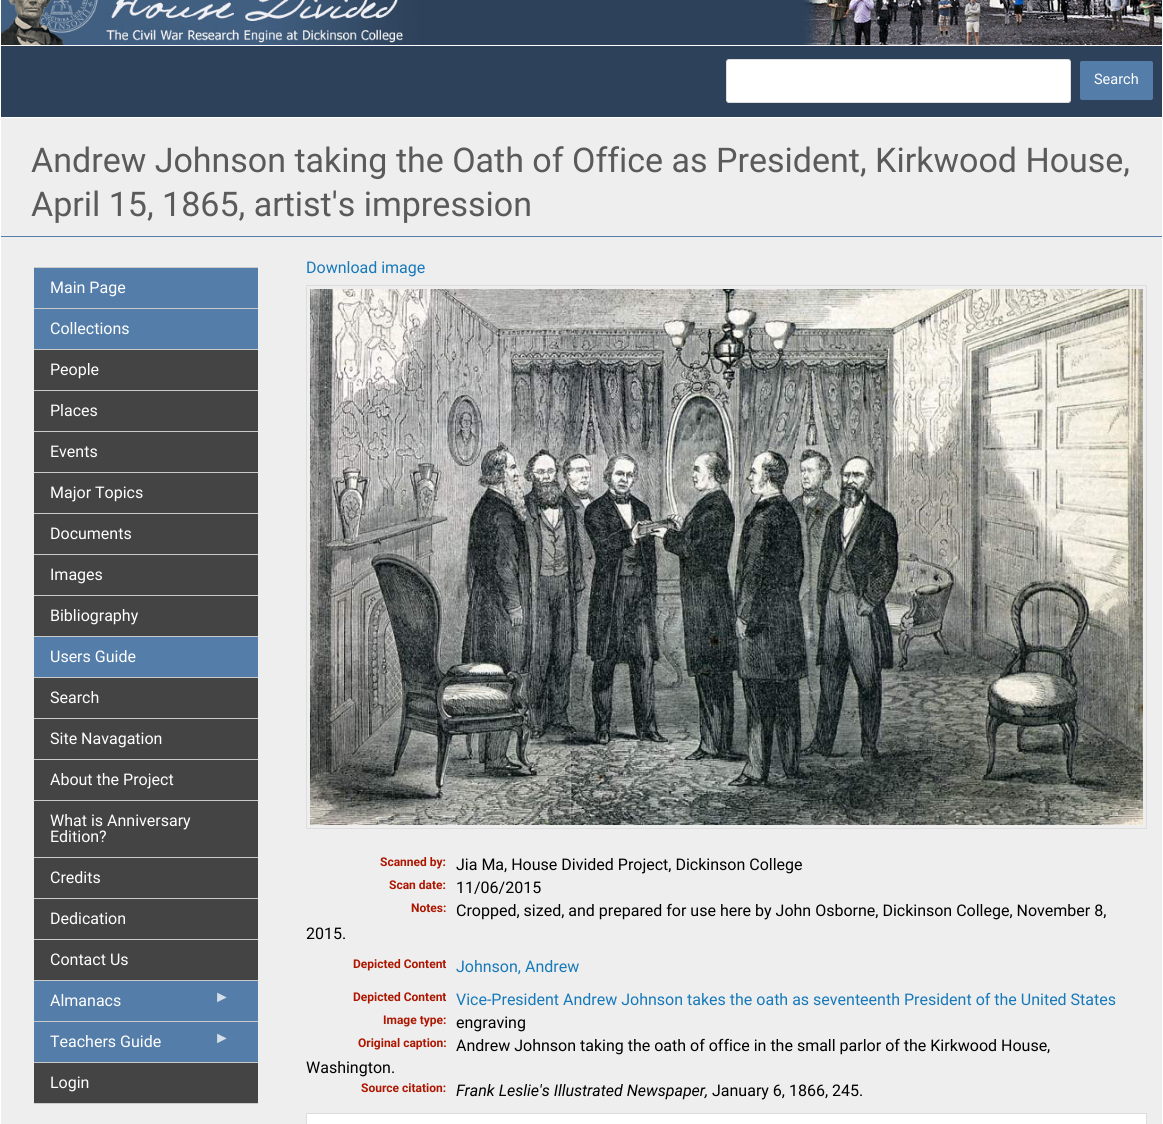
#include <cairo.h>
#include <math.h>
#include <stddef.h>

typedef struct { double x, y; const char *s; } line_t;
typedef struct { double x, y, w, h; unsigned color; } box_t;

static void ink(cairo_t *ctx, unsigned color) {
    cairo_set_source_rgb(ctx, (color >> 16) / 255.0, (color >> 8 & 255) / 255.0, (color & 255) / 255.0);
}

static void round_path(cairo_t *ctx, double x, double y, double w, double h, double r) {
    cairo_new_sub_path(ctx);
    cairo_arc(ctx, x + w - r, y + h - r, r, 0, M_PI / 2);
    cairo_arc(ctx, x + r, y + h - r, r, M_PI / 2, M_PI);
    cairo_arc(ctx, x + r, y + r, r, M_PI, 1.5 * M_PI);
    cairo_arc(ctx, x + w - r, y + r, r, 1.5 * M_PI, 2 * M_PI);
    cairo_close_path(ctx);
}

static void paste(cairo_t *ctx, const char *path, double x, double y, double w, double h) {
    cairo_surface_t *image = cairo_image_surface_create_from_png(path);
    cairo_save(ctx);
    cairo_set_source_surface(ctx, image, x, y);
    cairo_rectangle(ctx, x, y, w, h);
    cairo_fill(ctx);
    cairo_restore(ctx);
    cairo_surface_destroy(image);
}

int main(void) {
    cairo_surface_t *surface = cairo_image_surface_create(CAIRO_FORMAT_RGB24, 1163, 1124);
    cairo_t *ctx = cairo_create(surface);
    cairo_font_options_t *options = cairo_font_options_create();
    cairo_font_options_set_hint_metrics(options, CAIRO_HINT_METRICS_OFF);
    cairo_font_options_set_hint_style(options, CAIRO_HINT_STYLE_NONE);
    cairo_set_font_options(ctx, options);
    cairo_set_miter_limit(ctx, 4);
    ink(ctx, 0xFFFFFF);
    cairo_paint(ctx);
    paste(ctx, "media/1.png", 1, 0, 1161, 45);
    ink(ctx, 0x2D415A);
    cairo_rectangle(ctx, 1, 46, 1161, 71);
    cairo_fill(ctx);
    ink(ctx, 0xFFFFFF);
    round_path(ctx, 726.5, 59.5, 344, 43, 2.5);
    cairo_fill_preserve(ctx);
    ink(ctx, 0xDDDDDD);
    cairo_set_line_width(ctx, 1);
    cairo_stroke(ctx);
    ink(ctx, 0x547EA9);
    round_path(ctx, 1079.5, 60.5, 74, 40, 2.5);
    cairo_fill_preserve(ctx);
    ink(ctx, 0x2D415A);
    cairo_stroke(ctx);
    cairo_select_font_face(ctx, "Roboto", CAIRO_FONT_SLANT_NORMAL, CAIRO_FONT_WEIGHT_NORMAL);
    cairo_set_font_size(ctx, 14.5);
    ink(ctx, 0xFFFFFF);
    cairo_move_to(ctx, 1094, 84);
    cairo_show_text(ctx, "Search");
    ink(ctx, 0xEEEEEE);
    cairo_rectangle(ctx, 1, 118, 1161, 118);
    cairo_fill(ctx);
    ink(ctx, 0x547EA9);
    cairo_rectangle(ctx, 1, 236, 1161, 1);
    cairo_fill(ctx);
    cairo_set_font_size(ctx, 34);
    ink(ctx, 0x5B5A5A);
    cairo_move_to(ctx, 31, 172);
    cairo_show_text(ctx, "Andrew Johnson taking the Oath of Office as President, Kirkwood House,");
    cairo_move_to(ctx, 31, 216);
    cairo_show_text(ctx, "April 15, 1865, artist's impression");
    {
        static const box_t items[] = {
            {1, 237, 1161, 887, 0xEEEEEE},
            {34, 267, 224, 1, 0xCACACA},
            {34, 308, 224, 1, 0xCACACA},
            {34, 268, 224, 40, 0x547EA9},
        };
        for (size_t i = 0; i < sizeof items / sizeof *items; i++) {
            ink(ctx, items[i].color);
            cairo_rectangle(ctx, items[i].x, items[i].y, items[i].w, items[i].h);
            cairo_fill(ctx);
        }
    }
    cairo_set_font_size(ctx, 16);
    ink(ctx, 0xFFFFFF);
    cairo_move_to(ctx, 50, 293);
    cairo_show_text(ctx, "Main Page");
    ink(ctx, 0xCACACA);
    cairo_rectangle(ctx, 34, 349, 224, 1);
    cairo_fill(ctx);
    ink(ctx, 0x547EA9);
    cairo_rectangle(ctx, 34, 309, 224, 40);
    cairo_fill(ctx);
    ink(ctx, 0xFFFFFF);
    cairo_move_to(ctx, 50, 334);
    cairo_show_text(ctx, "Collections");
    ink(ctx, 0xCACACA);
    cairo_rectangle(ctx, 34, 390, 224, 1);
    cairo_fill(ctx);
    ink(ctx, 0x444444);
    cairo_rectangle(ctx, 34, 350, 224, 40);
    cairo_fill(ctx);
    ink(ctx, 0xFFFFFF);
    cairo_move_to(ctx, 50, 375);
    cairo_show_text(ctx, "People");
    ink(ctx, 0xCACACA);
    cairo_rectangle(ctx, 34, 431, 224, 1);
    cairo_fill(ctx);
    ink(ctx, 0x444444);
    cairo_rectangle(ctx, 34, 391, 224, 40);
    cairo_fill(ctx);
    ink(ctx, 0xFFFFFF);
    cairo_move_to(ctx, 50, 416);
    cairo_show_text(ctx, "Places");
    ink(ctx, 0xCACACA);
    cairo_rectangle(ctx, 34, 472, 224, 1);
    cairo_fill(ctx);
    ink(ctx, 0x444444);
    cairo_rectangle(ctx, 34, 432, 224, 40);
    cairo_fill(ctx);
    ink(ctx, 0xFFFFFF);
    cairo_move_to(ctx, 50, 457);
    cairo_show_text(ctx, "Events");
    ink(ctx, 0xCACACA);
    cairo_rectangle(ctx, 34, 513, 224, 1);
    cairo_fill(ctx);
    ink(ctx, 0x444444);
    cairo_rectangle(ctx, 34, 473, 224, 40);
    cairo_fill(ctx);
    ink(ctx, 0xFFFFFF);
    cairo_move_to(ctx, 50, 498);
    cairo_show_text(ctx, "Major Topics");
    ink(ctx, 0xCACACA);
    cairo_rectangle(ctx, 34, 554, 224, 1);
    cairo_fill(ctx);
    ink(ctx, 0x444444);
    cairo_rectangle(ctx, 34, 514, 224, 40);
    cairo_fill(ctx);
    ink(ctx, 0xFFFFFF);
    cairo_move_to(ctx, 50, 539);
    cairo_show_text(ctx, "Documents");
    ink(ctx, 0xCACACA);
    cairo_rectangle(ctx, 34, 595, 224, 1);
    cairo_fill(ctx);
    ink(ctx, 0x444444);
    cairo_rectangle(ctx, 34, 555, 224, 40);
    cairo_fill(ctx);
    ink(ctx, 0xFFFFFF);
    cairo_move_to(ctx, 50, 580);
    cairo_show_text(ctx, "Images");
    ink(ctx, 0xCACACA);
    cairo_rectangle(ctx, 34, 636, 224, 1);
    cairo_fill(ctx);
    ink(ctx, 0x444444);
    cairo_rectangle(ctx, 34, 596, 224, 40);
    cairo_fill(ctx);
    ink(ctx, 0xFFFFFF);
    cairo_move_to(ctx, 50, 621);
    cairo_show_text(ctx, "Bibliography");
    ink(ctx, 0xCACACA);
    cairo_rectangle(ctx, 34, 677, 224, 1);
    cairo_fill(ctx);
    ink(ctx, 0x547EA9);
    cairo_rectangle(ctx, 34, 637, 224, 40);
    cairo_fill(ctx);
    ink(ctx, 0xFFFFFF);
    cairo_move_to(ctx, 50, 662);
    cairo_show_text(ctx, "Users Guide");
    ink(ctx, 0xCACACA);
    cairo_rectangle(ctx, 34, 718, 224, 1);
    cairo_fill(ctx);
    ink(ctx, 0x444444);
    cairo_rectangle(ctx, 34, 678, 224, 40);
    cairo_fill(ctx);
    ink(ctx, 0xFFFFFF);
    cairo_move_to(ctx, 50, 703);
    cairo_show_text(ctx, "Search");
    ink(ctx, 0xCACACA);
    cairo_rectangle(ctx, 34, 759, 224, 1);
    cairo_fill(ctx);
    ink(ctx, 0x444444);
    cairo_rectangle(ctx, 34, 719, 224, 40);
    cairo_fill(ctx);
    ink(ctx, 0xFFFFFF);
    cairo_move_to(ctx, 50, 744);
    cairo_show_text(ctx, "Site Navagation");
    ink(ctx, 0xCACACA);
    cairo_rectangle(ctx, 34, 800, 224, 1);
    cairo_fill(ctx);
    ink(ctx, 0x444444);
    cairo_rectangle(ctx, 34, 760, 224, 40);
    cairo_fill(ctx);
    ink(ctx, 0xFFFFFF);
    cairo_move_to(ctx, 50, 785);
    cairo_show_text(ctx, "About the Project");
    ink(ctx, 0xCACACA);
    cairo_rectangle(ctx, 34, 857, 224, 1);
    cairo_fill(ctx);
    ink(ctx, 0x444444);
    cairo_rectangle(ctx, 34, 801, 224, 56);
    cairo_fill(ctx);
    ink(ctx, 0xFFFFFF);
    cairo_move_to(ctx, 50, 826);
    cairo_show_text(ctx, "What is Anniversary");
    cairo_move_to(ctx, 50, 842);
    cairo_show_text(ctx, "Edition?");
    ink(ctx, 0xCACACA);
    cairo_rectangle(ctx, 34, 898, 224, 1);
    cairo_fill(ctx);
    ink(ctx, 0x444444);
    cairo_rectangle(ctx, 34, 858, 224, 40);
    cairo_fill(ctx);
    ink(ctx, 0xFFFFFF);
    cairo_move_to(ctx, 50, 883);
    cairo_show_text(ctx, "Credits");
    ink(ctx, 0xCACACA);
    cairo_rectangle(ctx, 34, 939, 224, 1);
    cairo_fill(ctx);
    ink(ctx, 0x444444);
    cairo_rectangle(ctx, 34, 899, 224, 40);
    cairo_fill(ctx);
    ink(ctx, 0xFFFFFF);
    cairo_move_to(ctx, 50, 924);
    cairo_show_text(ctx, "Dedication");
    ink(ctx, 0xCACACA);
    cairo_rectangle(ctx, 34, 980, 224, 1);
    cairo_fill(ctx);
    ink(ctx, 0x444444);
    cairo_rectangle(ctx, 34, 940, 224, 40);
    cairo_fill(ctx);
    ink(ctx, 0xFFFFFF);
    cairo_move_to(ctx, 50, 965);
    cairo_show_text(ctx, "Contact Us");
    ink(ctx, 0xCACACA);
    cairo_rectangle(ctx, 34, 1021, 224, 1);
    cairo_fill(ctx);
    ink(ctx, 0x547EA9);
    cairo_rectangle(ctx, 34, 981, 224, 40);
    cairo_fill(ctx);
    ink(ctx, 0xFFFFFF);
    cairo_move_to(ctx, 50, 1006);
    cairo_show_text(ctx, "Almanacs");
    cairo_select_font_face(ctx, "Liberation Sans", CAIRO_FONT_SLANT_NORMAL, CAIRO_FONT_WEIGHT_NORMAL);
    ink(ctx, 0xD4DFEA);
    cairo_move_to(ctx, 214, 1002);
    cairo_show_text(ctx, "►");
    ink(ctx, 0xCACACA);
    cairo_rectangle(ctx, 34, 1062, 224, 1);
    cairo_fill(ctx);
    ink(ctx, 0x547EA9);
    cairo_rectangle(ctx, 34, 1022, 224, 40);
    cairo_fill(ctx);
    cairo_select_font_face(ctx, "Roboto", CAIRO_FONT_SLANT_NORMAL, CAIRO_FONT_WEIGHT_NORMAL);
    ink(ctx, 0xFFFFFF);
    cairo_move_to(ctx, 50, 1047);
    cairo_show_text(ctx, "Teachers Guide");
    cairo_select_font_face(ctx, "Liberation Sans", CAIRO_FONT_SLANT_NORMAL, CAIRO_FONT_WEIGHT_NORMAL);
    ink(ctx, 0xD4DFEA);
    cairo_move_to(ctx, 214, 1043);
    cairo_show_text(ctx, "►");
    ink(ctx, 0xCACACA);
    cairo_rectangle(ctx, 34, 1103, 224, 1);
    cairo_fill(ctx);
    ink(ctx, 0x444444);
    cairo_rectangle(ctx, 34, 1063, 224, 40);
    cairo_fill(ctx);
    cairo_select_font_face(ctx, "Roboto", CAIRO_FONT_SLANT_NORMAL, CAIRO_FONT_WEIGHT_NORMAL);
    ink(ctx, 0xFFFFFF);
    cairo_move_to(ctx, 50, 1088);
    cairo_show_text(ctx, "Login");
    ink(ctx, 0x1779BA);
    cairo_move_to(ctx, 306, 273);
    cairo_show_text(ctx, "Download image");
    cairo_rectangle(ctx, 306.5, 285.5, 840, 543);
    ink(ctx, 0xDDDDDD);
    cairo_stroke(ctx);
    paste(ctx, "media/2.png", 310, 289, 833, 536);
    cairo_select_font_face(ctx, "Roboto", CAIRO_FONT_SLANT_NORMAL, CAIRO_FONT_WEIGHT_BOLD);
    cairo_set_font_size(ctx, 12);
    ink(ctx, 0xAD1600);
    cairo_move_to(ctx, 380, 866);
    cairo_show_text(ctx, "Scanned by:");
    cairo_select_font_face(ctx, "Roboto", CAIRO_FONT_SLANT_NORMAL, CAIRO_FONT_WEIGHT_NORMAL);
    cairo_set_font_size(ctx, 16);
    ink(ctx, 0x000000);
    cairo_move_to(ctx, 456, 870);
    cairo_show_text(ctx, "Jia Ma, House Divided Project, Dickinson College");
    cairo_select_font_face(ctx, "Roboto", CAIRO_FONT_SLANT_NORMAL, CAIRO_FONT_WEIGHT_BOLD);
    cairo_set_font_size(ctx, 12);
    ink(ctx, 0xAD1600);
    cairo_move_to(ctx, 389, 889);
    cairo_show_text(ctx, "Scan date:");
    cairo_select_font_face(ctx, "Roboto", CAIRO_FONT_SLANT_NORMAL, CAIRO_FONT_WEIGHT_NORMAL);
    cairo_set_font_size(ctx, 16);
    ink(ctx, 0x000000);
    {
        static const line_t items[] = {
            {456, 893, "11/06/2015"},
            {456, 916, "Cropped, sized, and prepared for use here by John Osborne, Dickinson College, November 8,"},
            {306, 939, "2015."},
        };
        for (size_t i = 0; i < sizeof items / sizeof *items; i++) {
            cairo_move_to(ctx, items[i].x, items[i].y);
            cairo_show_text(ctx, items[i].s);
        }
    }
    cairo_select_font_face(ctx, "Roboto", CAIRO_FONT_SLANT_NORMAL, CAIRO_FONT_WEIGHT_BOLD);
    cairo_set_font_size(ctx, 12);
    ink(ctx, 0xAD1600);
    cairo_move_to(ctx, 411, 912);
    cairo_show_text(ctx, "Notes:");
    cairo_move_to(ctx, 353, 968);
    cairo_show_text(ctx, "Depicted Content");
    cairo_select_font_face(ctx, "Roboto", CAIRO_FONT_SLANT_NORMAL, CAIRO_FONT_WEIGHT_NORMAL);
    cairo_set_font_size(ctx, 16);
    ink(ctx, 0x1779BA);
    cairo_move_to(ctx, 456, 972);
    cairo_show_text(ctx, "Johnson, Andrew");
    cairo_select_font_face(ctx, "Roboto", CAIRO_FONT_SLANT_NORMAL, CAIRO_FONT_WEIGHT_BOLD);
    cairo_set_font_size(ctx, 12);
    ink(ctx, 0xAD1600);
    cairo_move_to(ctx, 353, 1001);
    cairo_show_text(ctx, "Depicted Content");
    cairo_select_font_face(ctx, "Roboto", CAIRO_FONT_SLANT_NORMAL, CAIRO_FONT_WEIGHT_NORMAL);
    cairo_set_font_size(ctx, 16);
    ink(ctx, 0x1779BA);
    cairo_move_to(ctx, 456, 1005);
    cairo_show_text(ctx, "Vice-President Andrew Johnson takes the oath as seventeenth President of the United States");
    cairo_select_font_face(ctx, "Roboto", CAIRO_FONT_SLANT_NORMAL, CAIRO_FONT_WEIGHT_BOLD);
    cairo_set_font_size(ctx, 12);
    ink(ctx, 0xAD1600);
    cairo_move_to(ctx, 383, 1024);
    cairo_show_text(ctx, "Image type:");
    cairo_select_font_face(ctx, "Roboto", CAIRO_FONT_SLANT_NORMAL, CAIRO_FONT_WEIGHT_NORMAL);
    cairo_set_font_size(ctx, 16);
    ink(ctx, 0x000000);
    {
        static const line_t items[] = {
            {456, 1028, "engraving"},
            {456, 1051, "Andrew Johnson taking the oath of office in the small parlor of the Kirkwood House,"},
            {306, 1073, "Washington."},
        };
        for (size_t i = 0; i < sizeof items / sizeof *items; i++) {
            cairo_move_to(ctx, items[i].x, items[i].y);
            cairo_show_text(ctx, items[i].s);
        }
    }
    cairo_select_font_face(ctx, "Roboto", CAIRO_FONT_SLANT_NORMAL, CAIRO_FONT_WEIGHT_BOLD);
    cairo_set_font_size(ctx, 12);
    ink(ctx, 0xAD1600);
    cairo_move_to(ctx, 358, 1047);
    cairo_show_text(ctx, "Original caption:");
    cairo_move_to(ctx, 361, 1092);
    cairo_show_text(ctx, "Source citation:");
    cairo_select_font_face(ctx, "Roboto", CAIRO_FONT_SLANT_ITALIC, CAIRO_FONT_WEIGHT_NORMAL);
    cairo_set_font_size(ctx, 16);
    ink(ctx, 0x000000);
    cairo_move_to(ctx, 456, 1096);
    cairo_show_text(ctx, "Frank Leslie's Illustrated Newspaper,");
    cairo_select_font_face(ctx, "Roboto", CAIRO_FONT_SLANT_NORMAL, CAIRO_FONT_WEIGHT_NORMAL);
    cairo_move_to(ctx, 712, 1096);
    cairo_show_text(ctx, "January 6, 1866, 245.");
    ink(ctx, 0xFFFFFF);
    cairo_rectangle(ctx, 306.5, 1113.5, 840, 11);
    cairo_fill_preserve(ctx);
    ink(ctx, 0xDDDDDD);
    cairo_stroke(ctx);
    cairo_surface_write_to_png(surface, "image.png");
    cairo_font_options_destroy(options);
    cairo_destroy(ctx);
    cairo_surface_destroy(surface);
    return 0;
}
